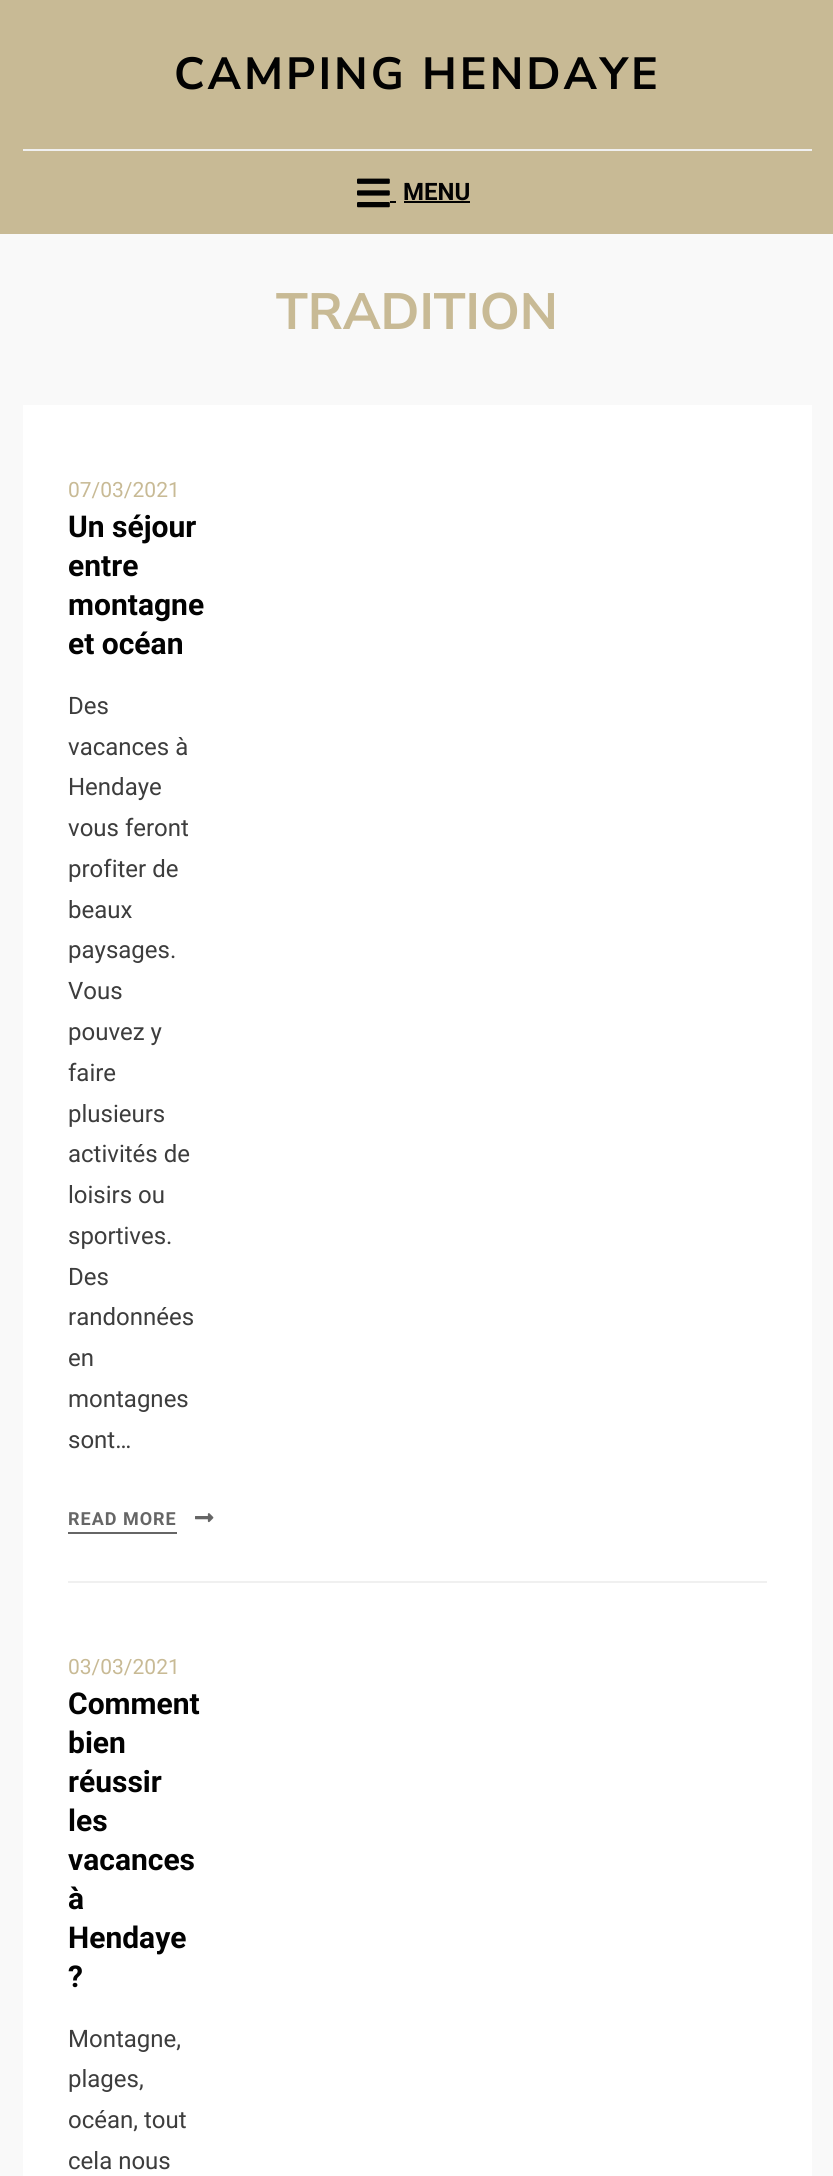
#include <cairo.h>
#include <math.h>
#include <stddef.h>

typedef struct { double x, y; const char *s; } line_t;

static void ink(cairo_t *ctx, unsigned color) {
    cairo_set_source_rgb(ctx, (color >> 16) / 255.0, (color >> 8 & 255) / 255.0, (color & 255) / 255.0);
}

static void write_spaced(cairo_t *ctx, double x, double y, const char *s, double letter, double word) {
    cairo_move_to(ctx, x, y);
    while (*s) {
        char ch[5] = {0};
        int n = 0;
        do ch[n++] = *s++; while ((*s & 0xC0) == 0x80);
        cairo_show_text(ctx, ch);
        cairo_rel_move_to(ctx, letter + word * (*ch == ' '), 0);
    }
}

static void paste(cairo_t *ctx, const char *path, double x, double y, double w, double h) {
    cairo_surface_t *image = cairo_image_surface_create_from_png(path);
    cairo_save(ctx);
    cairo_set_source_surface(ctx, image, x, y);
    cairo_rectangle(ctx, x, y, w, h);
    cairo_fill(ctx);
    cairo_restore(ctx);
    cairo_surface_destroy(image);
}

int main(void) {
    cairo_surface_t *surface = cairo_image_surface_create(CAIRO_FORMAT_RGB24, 833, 2176);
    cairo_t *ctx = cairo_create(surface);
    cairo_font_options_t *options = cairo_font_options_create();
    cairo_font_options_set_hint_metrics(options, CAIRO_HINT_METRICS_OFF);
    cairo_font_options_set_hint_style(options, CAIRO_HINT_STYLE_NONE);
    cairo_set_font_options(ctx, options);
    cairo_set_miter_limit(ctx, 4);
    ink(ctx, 0xF9F9F9);
    cairo_paint(ctx);
    ink(ctx, 0xC8BA95);
    cairo_rectangle(ctx, 0, 0, 833, 234);
    cairo_fill(ctx);
    cairo_select_font_face(ctx, "Nunito Sans", CAIRO_FONT_SLANT_NORMAL, CAIRO_FONT_WEIGHT_BOLD);
    cairo_set_font_size(ctx, 45);
    ink(ctx, 0x020202);
    write_spaced(ctx, 174, 89, "CAMPING HENDAYE", 3, 0);
    ink(ctx, 0xF0F0F0);
    cairo_rectangle(ctx, 23, 149, 789, 2);
    cairo_fill(ctx);
    paste(ctx, "media/1.png", 357, 178, 33, 30);
    cairo_select_font_face(ctx, "Roboto", CAIRO_FONT_SLANT_NORMAL, CAIRO_FONT_WEIGHT_BOLD);
    cairo_set_font_size(ctx, 24);
    ink(ctx, 0x020202);
    cairo_move_to(ctx, 403, 200);
    cairo_show_text(ctx, "MENU");
    cairo_rectangle(ctx, 404, 201, 66, 2);
    cairo_fill(ctx);
    cairo_rectangle(ctx, 390, 201, 6, 2);
    cairo_fill(ctx);
    cairo_select_font_face(ctx, "Nunito Sans", CAIRO_FONT_SLANT_NORMAL, CAIRO_FONT_WEIGHT_BOLD);
    cairo_set_font_size(ctx, 51);
    ink(ctx, 0xC8BA95);
    cairo_move_to(ctx, 276, 329);
    cairo_show_text(ctx, "TRADITION");
    ink(ctx, 0xFFFFFF);
    cairo_rectangle(ctx, 23, 405, 789, 1771);
    cairo_fill(ctx);
    cairo_select_font_face(ctx, "Roboto", CAIRO_FONT_SLANT_NORMAL, CAIRO_FONT_WEIGHT_NORMAL);
    cairo_set_font_size(ctx, 21);
    ink(ctx, 0xC8BA95);
    cairo_move_to(ctx, 68, 497);
    cairo_show_text(ctx, "07/03/2021");
    cairo_select_font_face(ctx, "Roboto", CAIRO_FONT_SLANT_NORMAL, CAIRO_FONT_WEIGHT_BOLD);
    cairo_set_font_size(ctx, 30);
    ink(ctx, 0x020202);
    {
        static const line_t items[] = {
            {68, 537, "Un séjour"},
            {68, 576, "entre"},
            {68, 615, "montagne"},
            {68, 654, "et océan"},
        };
        for (size_t i = 0; i < sizeof items / sizeof *items; i++) {
            cairo_move_to(ctx, items[i].x, items[i].y);
            cairo_show_text(ctx, items[i].s);
        }
    }
    cairo_select_font_face(ctx, "Roboto", CAIRO_FONT_SLANT_NORMAL, CAIRO_FONT_WEIGHT_NORMAL);
    cairo_set_font_size(ctx, 24);
    ink(ctx, 0x3D3D3D);
    {
        static const line_t items[] = {
            {68, 714, "Des"},
            {68, 755, "vacances à"},
            {68, 795, "Hendaye"},
            {68, 836, "vous feront"},
            {68, 877, "profiter de"},
            {68, 918, "beaux"},
            {68, 958, "paysages."},
            {68, 999, "Vous"},
            {68, 1040, "pouvez y"},
            {68, 1081, "faire"},
            {68, 1122, "plusieurs"},
            {68, 1162, "activités de"},
            {68, 1203, "loisirs ou"},
            {68, 1244, "sportives."},
            {68, 1285, "Des"},
            {68, 1325, "randonnées"},
            {68, 1366, "en"},
            {68, 1407, "montagnes"},
            {68, 1448, "sont…"},
        };
        for (size_t i = 0; i < sizeof items / sizeof *items; i++) {
            cairo_move_to(ctx, items[i].x, items[i].y);
            cairo_show_text(ctx, items[i].s);
        }
    }
    cairo_select_font_face(ctx, "Roboto", CAIRO_FONT_SLANT_NORMAL, CAIRO_FONT_WEIGHT_BOLD);
    cairo_set_font_size(ctx, 18);
    ink(ctx, 0x666666);
    write_spaced(ctx, 68, 1525, "READ MORE", 1, 0);
    paste(ctx, "media/2.png", 195, 1513, 19, 10);
    cairo_rectangle(ctx, 68, 1532, 109, 2);
    cairo_fill(ctx);
    ink(ctx, 0xF0F0F0);
    cairo_rectangle(ctx, 68, 1581, 699, 2);
    cairo_fill(ctx);
    cairo_select_font_face(ctx, "Roboto", CAIRO_FONT_SLANT_NORMAL, CAIRO_FONT_WEIGHT_NORMAL);
    cairo_set_font_size(ctx, 21);
    ink(ctx, 0xC8BA95);
    cairo_move_to(ctx, 68, 1674);
    cairo_show_text(ctx, "03/03/2021");
    cairo_select_font_face(ctx, "Roboto", CAIRO_FONT_SLANT_NORMAL, CAIRO_FONT_WEIGHT_BOLD);
    cairo_set_font_size(ctx, 30);
    ink(ctx, 0x020202);
    {
        static const line_t items[] = {
            {68, 1714, "Comment"},
            {68, 1753, "bien"},
            {68, 1792, "réussir"},
            {68, 1831, "les"},
            {68, 1870, "vacances"},
            {68, 1909, "à"},
            {68, 1948, "Hendaye"},
            {68, 1987, "?"},
        };
        for (size_t i = 0; i < sizeof items / sizeof *items; i++) {
            cairo_move_to(ctx, items[i].x, items[i].y);
            cairo_show_text(ctx, items[i].s);
        }
    }
    cairo_select_font_face(ctx, "Roboto", CAIRO_FONT_SLANT_NORMAL, CAIRO_FONT_WEIGHT_NORMAL);
    cairo_set_font_size(ctx, 24);
    ink(ctx, 0x3D3D3D);
    {
        static const line_t items[] = {
            {68, 2047, "Montagne,"},
            {68, 2087, "plages,"},
            {68, 2128, "océan, tout"},
            {68, 2169, "cela nous"},
        };
        for (size_t i = 0; i < sizeof items / sizeof *items; i++) {
            cairo_move_to(ctx, items[i].x, items[i].y);
            cairo_show_text(ctx, items[i].s);
        }
    }
    cairo_surface_write_to_png(surface, "image.png");
    cairo_font_options_destroy(options);
    cairo_destroy(ctx);
    cairo_surface_destroy(surface);
    return 0;
}
